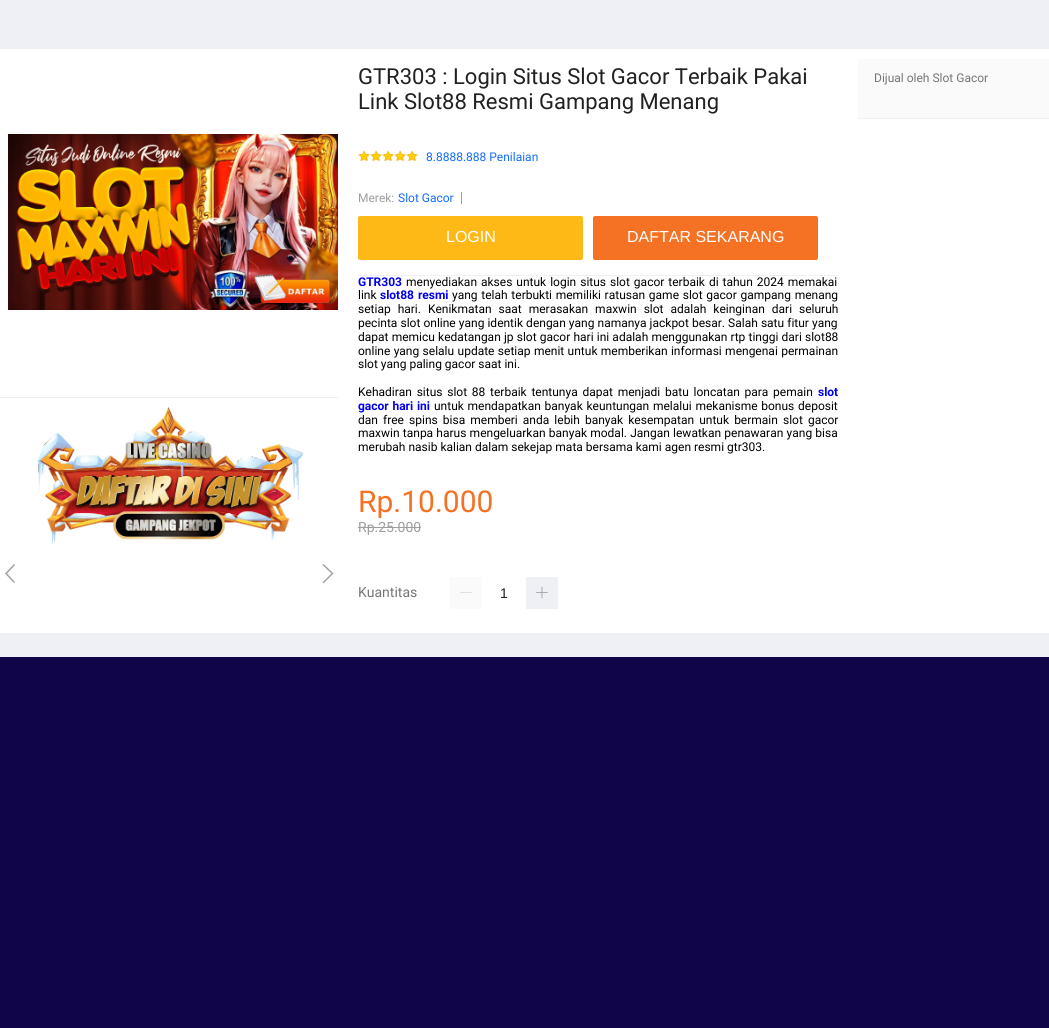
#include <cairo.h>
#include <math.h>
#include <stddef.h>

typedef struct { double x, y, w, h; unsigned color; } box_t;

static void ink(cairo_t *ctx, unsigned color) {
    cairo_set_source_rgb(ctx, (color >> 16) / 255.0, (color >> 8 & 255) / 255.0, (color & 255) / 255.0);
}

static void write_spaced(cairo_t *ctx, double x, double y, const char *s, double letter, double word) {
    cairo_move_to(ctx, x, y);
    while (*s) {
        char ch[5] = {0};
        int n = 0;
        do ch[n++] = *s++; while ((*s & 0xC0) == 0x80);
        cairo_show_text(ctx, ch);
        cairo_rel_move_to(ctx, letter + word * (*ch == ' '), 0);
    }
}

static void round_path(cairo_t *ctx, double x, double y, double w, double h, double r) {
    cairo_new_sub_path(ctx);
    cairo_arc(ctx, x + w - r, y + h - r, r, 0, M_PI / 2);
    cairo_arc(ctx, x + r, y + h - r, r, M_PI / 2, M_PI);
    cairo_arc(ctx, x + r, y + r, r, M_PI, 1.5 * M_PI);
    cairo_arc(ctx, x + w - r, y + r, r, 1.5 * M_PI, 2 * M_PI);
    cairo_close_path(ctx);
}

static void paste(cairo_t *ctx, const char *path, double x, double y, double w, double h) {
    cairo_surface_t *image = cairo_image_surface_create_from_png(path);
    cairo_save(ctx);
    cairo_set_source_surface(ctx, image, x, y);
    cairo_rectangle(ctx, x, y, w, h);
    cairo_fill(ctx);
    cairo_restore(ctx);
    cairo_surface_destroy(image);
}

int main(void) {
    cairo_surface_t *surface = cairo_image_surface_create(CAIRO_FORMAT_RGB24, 1049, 1028);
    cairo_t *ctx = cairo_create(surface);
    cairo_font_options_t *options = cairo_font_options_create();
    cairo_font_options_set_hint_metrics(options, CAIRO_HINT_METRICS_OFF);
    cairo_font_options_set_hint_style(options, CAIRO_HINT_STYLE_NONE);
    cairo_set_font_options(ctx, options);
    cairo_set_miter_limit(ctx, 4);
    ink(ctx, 0x100549);
    cairo_paint(ctx);
    {
        static const box_t items[] = {
            {0, 0, 1049, 49, 0xEFF0F5},
            {0, 633, 1049, 24, 0xEFF0F5},
            {0, 49, 1049, 584, 0xFFFFFF},
            {0, 397, 338, 1, 0xEFF0F5},
        };
        for (size_t i = 0; i < sizeof items / sizeof *items; i++) {
            ink(ctx, items[i].color);
            cairo_rectangle(ctx, items[i].x, items[i].y, items[i].w, items[i].h);
            cairo_fill(ctx);
        }
    }
    paste(ctx, "media/1.png", 8, 134, 330, 176);
    paste(ctx, "media/2.png", 38, 407, 266, 137);
    ink(ctx, 0x9E9E9E);
    cairo_new_path(ctx);
    cairo_move_to(ctx, 15, 582);
    cairo_line_to(ctx, 7, 573.5);
    cairo_line_to(ctx, 15, 565);
    cairo_line_to(ctx, 14, 564);
    cairo_line_to(ctx, 5, 573.5);
    cairo_line_to(ctx, 14, 583);
    cairo_close_path(ctx);
    cairo_fill(ctx);
    cairo_new_path(ctx);
    cairo_move_to(ctx, 323.5, 583.5);
    cairo_line_to(ctx, 322.5, 582.5);
    cairo_line_to(ctx, 331.5, 573.5);
    cairo_line_to(ctx, 322.5, 565);
    cairo_line_to(ctx, 323.5, 564);
    cairo_line_to(ctx, 333.5, 573.5);
    cairo_close_path(ctx);
    cairo_fill(ctx);
    cairo_select_font_face(ctx, "Roboto", CAIRO_FONT_SLANT_NORMAL, CAIRO_FONT_WEIGHT_NORMAL);
    cairo_set_font_size(ctx, 22);
    ink(ctx, 0x212121);
    cairo_move_to(ctx, 358, 84);
    cairo_show_text(ctx, "GTR303 : Login Situs Slot Gacor Terbaik Pakai");
    cairo_move_to(ctx, 358, 109);
    cairo_show_text(ctx, "Link Slot88 Resmi Gampang Menang");
    paste(ctx, "media/3.png", 358, 150, 12, 12);
    paste(ctx, "media/3.png", 370, 150, 12, 12);
    paste(ctx, "media/3.png", 382, 150, 12, 12);
    paste(ctx, "media/3.png", 394, 150, 12, 12);
    paste(ctx, "media/3.png", 406, 150, 12, 12);
    cairo_set_font_size(ctx, 12);
    ink(ctx, 0x136CFF);
    cairo_move_to(ctx, 426, 161);
    cairo_show_text(ctx, "8.8888.888 Penilaian");
    ink(ctx, 0xEFF0F5);
    cairo_rectangle(ctx, 358, 275, 480, 1);
    cairo_fill(ctx);
    ink(ctx, 0x9E9E9E);
    cairo_move_to(ctx, 358, 202);
    cairo_show_text(ctx, "Merek:");
    ink(ctx, 0x136CFF);
    cairo_move_to(ctx, 398, 202);
    cairo_show_text(ctx, "Slot Gacor");
    ink(ctx, 0x9E9E9E);
    cairo_rectangle(ctx, 461, 192, 1, 12);
    cairo_fill(ctx);
    ink(ctx, 0xFFB916);
    round_path(ctx, 358, 216, 225, 44, 2);
    cairo_fill(ctx);
    cairo_select_font_face(ctx, "Liberation Sans", CAIRO_FONT_SLANT_NORMAL, CAIRO_FONT_WEIGHT_NORMAL);
    cairo_set_font_size(ctx, 16);
    ink(ctx, 0xFFFFFF);
    cairo_move_to(ctx, 446, 242);
    cairo_show_text(ctx, "LOGIN");
    ink(ctx, 0xF57224);
    round_path(ctx, 593, 216, 225, 44, 2);
    cairo_fill(ctx);
    ink(ctx, 0xFFFFFF);
    cairo_move_to(ctx, 627, 242);
    cairo_show_text(ctx, "DAFTAR SEKARANG");
    cairo_select_font_face(ctx, "Roboto", CAIRO_FONT_SLANT_NORMAL, CAIRO_FONT_WEIGHT_BOLD);
    cairo_set_font_size(ctx, 12);
    ink(ctx, 0x0000EE);
    cairo_move_to(ctx, 358, 286);
    cairo_show_text(ctx, "GTR303");
    cairo_select_font_face(ctx, "Roboto", CAIRO_FONT_SLANT_NORMAL, CAIRO_FONT_WEIGHT_NORMAL);
    ink(ctx, 0x000000);
    write_spaced(ctx, 406, 286, "menyediakan akses untuk login situs slot gacor terbaik di tahun 2024 memakai", 0, 1);
    cairo_move_to(ctx, 358, 299);
    cairo_show_text(ctx, "link");
    cairo_select_font_face(ctx, "Roboto", CAIRO_FONT_SLANT_NORMAL, CAIRO_FONT_WEIGHT_BOLD);
    ink(ctx, 0x0000EE);
    write_spaced(ctx, 380, 299, "slot88 resmi", 0, 1);
    cairo_select_font_face(ctx, "Roboto", CAIRO_FONT_SLANT_NORMAL, CAIRO_FONT_WEIGHT_NORMAL);
    ink(ctx, 0x000000);
    write_spaced(ctx, 452, 299, "yang telah terbukti memiliki ratusan game slot gacor gampang menang", 0, 0.75);
    write_spaced(ctx, 358, 313, "setiap hari. Kenikmatan saat merasakan maxwin slot adalah keinginan dari seluruh", 0, 4);
    write_spaced(ctx, 358, 327, "pecinta slot online yang identik dengan yang namanya jackpot besar. Salah satu fitur yang", 0, 0.1);
    write_spaced(ctx, 358, 341, "dapat memicu kedatangan jp slot gacor hari ini adalah menggunakan rtp tinggi dari slot88", 0, 0.2);
    write_spaced(ctx, 358, 355, "online yang selalu update setiap menit untuk memberikan informasi mengenai permainan", 0, 0.4);
    cairo_move_to(ctx, 358, 368);
    cairo_show_text(ctx, "slot yang paling gacor saat ini.");
    write_spaced(ctx, 358, 396, "Kehadiran situs slot 88 terbaik tentunya dapat menjadi batu loncatan para pemain", 0, 1.75);
    cairo_select_font_face(ctx, "Roboto", CAIRO_FONT_SLANT_NORMAL, CAIRO_FONT_WEIGHT_BOLD);
    ink(ctx, 0x0000EE);
    cairo_move_to(ctx, 818, 396);
    cairo_show_text(ctx, "slot");
    write_spaced(ctx, 358, 410, "gacor hari ini", 0, 0.75);
    cairo_select_font_face(ctx, "Roboto", CAIRO_FONT_SLANT_NORMAL, CAIRO_FONT_WEIGHT_NORMAL);
    ink(ctx, 0x000000);
    write_spaced(ctx, 434, 410, "untuk mendapatkan banyak keuntungan melalui mekanisme bonus deposit", 0, 0.75);
    write_spaced(ctx, 358, 424, "dan free spins bisa memberi anda lebih banyak kesempatan untuk bermain slot gacor", 0, 2.1);
    write_spaced(ctx, 358, 437, "maxwin tanpa harus mengeluarkan banyak modal. Jangan lewatkan penawaran yang bisa", 0, 0.25);
    cairo_move_to(ctx, 358, 451);
    cairo_show_text(ctx, "merubah nasib kalian dalam sekejap mata bersama kami agen resmi gtr303.");
    cairo_set_font_size(ctx, 30);
    ink(ctx, 0xF57224);
    cairo_move_to(ctx, 358, 512);
    cairo_show_text(ctx, "Rp.10.000");
    cairo_set_font_size(ctx, 14);
    ink(ctx, 0x9E9E9E);
    cairo_move_to(ctx, 358, 532);
    cairo_show_text(ctx, "Rp.25.000");
    cairo_rectangle(ctx, 358, 527, 63, 1);
    cairo_fill(ctx);
    ink(ctx, 0x757575);
    cairo_move_to(ctx, 358, 597);
    cairo_show_text(ctx, "Kuantitas");
    ink(ctx, 0xFAFAFA);
    cairo_rectangle(ctx, 450, 577, 32, 32);
    cairo_fill(ctx);
    paste(ctx, "media/4.png", 460, 592, 12, 1);
    ink(ctx, 0xEFF0F5);
    cairo_rectangle(ctx, 526, 577, 32, 32);
    cairo_fill(ctx);
    paste(ctx, "media/5.png", 536, 586, 12, 13);
    cairo_select_font_face(ctx, "Liberation Sans", CAIRO_FONT_SLANT_NORMAL, CAIRO_FONT_WEIGHT_NORMAL);
    ink(ctx, 0x212121);
    cairo_move_to(ctx, 500, 598);
    cairo_show_text(ctx, "1");
    ink(ctx, 0xFAFAFA);
    cairo_rectangle(ctx, 858, 59, 191, 59);
    cairo_fill(ctx);
    cairo_select_font_face(ctx, "Roboto", CAIRO_FONT_SLANT_NORMAL, CAIRO_FONT_WEIGHT_NORMAL);
    cairo_set_font_size(ctx, 12);
    ink(ctx, 0x757575);
    cairo_move_to(ctx, 874, 82);
    cairo_show_text(ctx, "Dijual oleh Slot Gacor");
    ink(ctx, 0xEFF0F5);
    cairo_rectangle(ctx, 858, 118, 191, 1);
    cairo_fill(ctx);
    cairo_surface_write_to_png(surface, "image.png");
    cairo_font_options_destroy(options);
    cairo_destroy(ctx);
    cairo_surface_destroy(surface);
    return 0;
}
